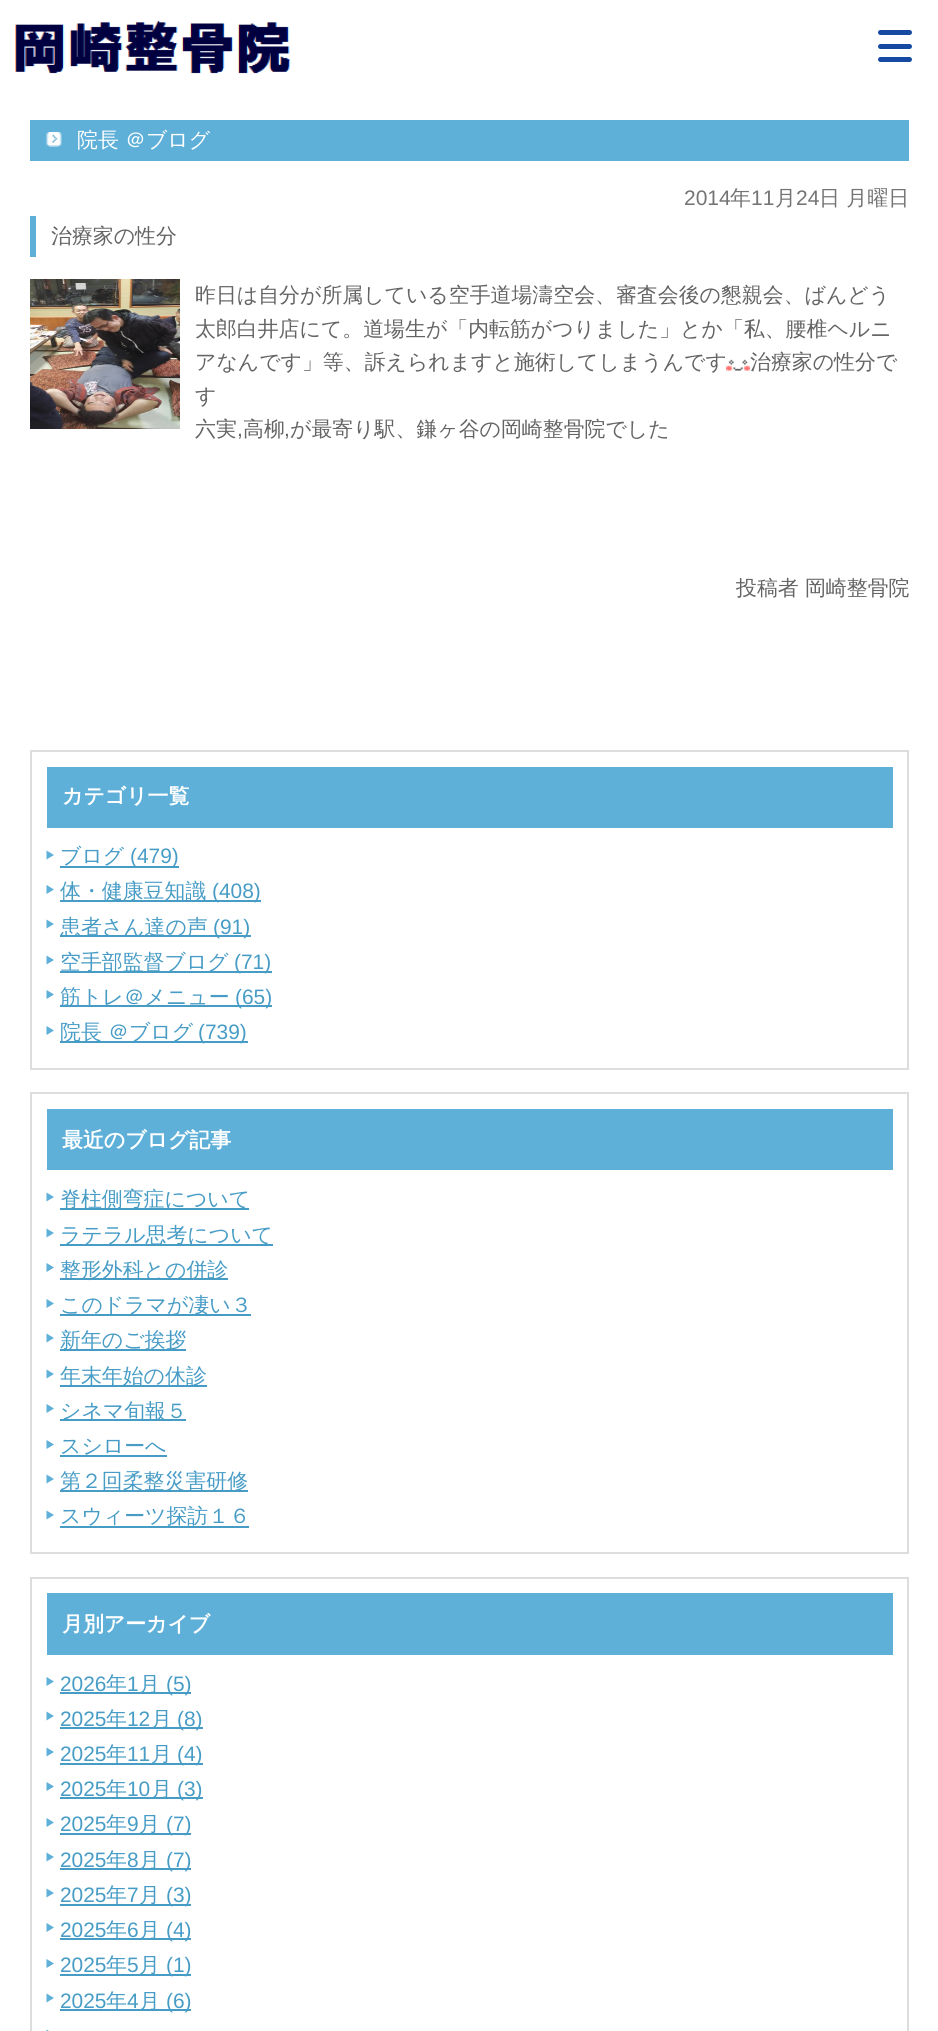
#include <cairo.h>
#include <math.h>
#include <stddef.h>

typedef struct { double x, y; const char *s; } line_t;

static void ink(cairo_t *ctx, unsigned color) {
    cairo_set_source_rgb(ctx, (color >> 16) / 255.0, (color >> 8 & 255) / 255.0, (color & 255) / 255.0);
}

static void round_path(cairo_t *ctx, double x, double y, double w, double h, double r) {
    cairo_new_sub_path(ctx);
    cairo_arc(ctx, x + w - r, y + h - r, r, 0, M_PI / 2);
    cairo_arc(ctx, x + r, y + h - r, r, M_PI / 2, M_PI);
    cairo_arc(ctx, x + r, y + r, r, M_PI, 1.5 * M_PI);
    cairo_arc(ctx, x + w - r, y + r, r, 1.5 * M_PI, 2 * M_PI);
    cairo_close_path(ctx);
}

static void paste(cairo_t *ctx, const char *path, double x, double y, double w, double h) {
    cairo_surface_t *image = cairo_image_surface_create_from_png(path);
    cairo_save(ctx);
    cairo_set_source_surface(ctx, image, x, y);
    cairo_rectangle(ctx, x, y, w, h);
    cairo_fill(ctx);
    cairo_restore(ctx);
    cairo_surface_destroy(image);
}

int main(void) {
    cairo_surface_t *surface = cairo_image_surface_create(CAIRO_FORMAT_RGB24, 938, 2031);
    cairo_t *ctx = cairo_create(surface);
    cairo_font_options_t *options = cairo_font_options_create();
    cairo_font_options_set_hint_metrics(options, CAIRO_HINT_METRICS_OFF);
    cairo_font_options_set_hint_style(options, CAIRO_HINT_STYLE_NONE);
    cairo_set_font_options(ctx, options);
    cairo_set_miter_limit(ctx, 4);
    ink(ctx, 0xFFFFFF);
    cairo_paint(ctx);
    paste(ctx, "media/1.png", 15, 21, 276, 53);
    ink(ctx, 0x1649A2);
    round_path(ctx, 878, 30, 34, 5, 2.5);
    cairo_fill(ctx);
    round_path(ctx, 878, 44, 34, 5, 2.5);
    cairo_fill(ctx);
    round_path(ctx, 878, 57, 34, 5, 2.5);
    cairo_fill(ctx);
    ink(ctx, 0x5EB0D9);
    cairo_rectangle(ctx, 30, 120, 879, 41);
    cairo_fill(ctx);
    paste(ctx, "media/2.png", 46, 132, 16, 15);
    cairo_select_font_face(ctx, "WenQuanYi Zen Hei Medium", CAIRO_FONT_SLANT_NORMAL, CAIRO_FONT_WEIGHT_NORMAL);
    cairo_set_font_size(ctx, 20.9);
    ink(ctx, 0xFFFFFF);
    cairo_move_to(ctx, 77, 147);
    cairo_show_text(ctx, "院長 ＠ブログ");
    cairo_select_font_face(ctx, "Liberation Sans", CAIRO_FONT_SLANT_NORMAL, CAIRO_FONT_WEIGHT_NORMAL);
    cairo_set_font_size(ctx, 21);
    ink(ctx, 0x747474);
    cairo_move_to(ctx, 684, 205);
    cairo_show_text(ctx, "2014");
    cairo_select_font_face(ctx, "WenQuanYi Zen Hei Medium", CAIRO_FONT_SLANT_NORMAL, CAIRO_FONT_WEIGHT_NORMAL);
    cairo_move_to(ctx, 730, 205);
    cairo_show_text(ctx, "年");
    cairo_select_font_face(ctx, "Liberation Sans", CAIRO_FONT_SLANT_NORMAL, CAIRO_FONT_WEIGHT_NORMAL);
    cairo_move_to(ctx, 751, 205);
    cairo_show_text(ctx, "11");
    cairo_select_font_face(ctx, "WenQuanYi Zen Hei Medium", CAIRO_FONT_SLANT_NORMAL, CAIRO_FONT_WEIGHT_NORMAL);
    cairo_move_to(ctx, 775, 205);
    cairo_show_text(ctx, "月");
    cairo_select_font_face(ctx, "Liberation Sans", CAIRO_FONT_SLANT_NORMAL, CAIRO_FONT_WEIGHT_NORMAL);
    cairo_move_to(ctx, 796, 205);
    cairo_show_text(ctx, "24");
    cairo_select_font_face(ctx, "WenQuanYi Zen Hei Medium", CAIRO_FONT_SLANT_NORMAL, CAIRO_FONT_WEIGHT_NORMAL);
    cairo_move_to(ctx, 819, 205);
    cairo_show_text(ctx, "日 月曜日");
    ink(ctx, 0x5EB0D9);
    cairo_rectangle(ctx, 30, 216, 6, 41);
    cairo_fill(ctx);
    cairo_set_font_size(ctx, 20.9);
    ink(ctx, 0x646464);
    cairo_move_to(ctx, 51, 243);
    cairo_show_text(ctx, "治療家の性分");
    paste(ctx, "media/3.png", 30, 279, 150, 150);
    {
        static const line_t items[] = {
            {195, 302, "昨日は自分が所属している空手道場濤空会、審査会後の懇親会、ばんどう"},
            {195, 336, "太郎白井店にて。道場生が「内転筋がつりました」とか「私、腰椎ヘルニ"},
            {195, 369, "アなんです」等、訴えられますと施術してしまうんです"},
        };
        for (size_t i = 0; i < sizeof items / sizeof *items; i++) {
            cairo_move_to(ctx, items[i].x, items[i].y);
            cairo_show_text(ctx, items[i].s);
        }
    }
    paste(ctx, "media/4.png", 726, 359, 24, 12);
    {
        static const line_t items[] = {
            {750, 369, "治療家の性分で"},
            {195, 403, "す"},
            {195, 436, "六実"},
        };
        for (size_t i = 0; i < sizeof items / sizeof *items; i++) {
            cairo_move_to(ctx, items[i].x, items[i].y);
            cairo_show_text(ctx, items[i].s);
        }
    }
    cairo_select_font_face(ctx, "Liberation Sans", CAIRO_FONT_SLANT_NORMAL, CAIRO_FONT_WEIGHT_NORMAL);
    cairo_move_to(ctx, 237, 436);
    cairo_show_text(ctx, ",");
    cairo_select_font_face(ctx, "WenQuanYi Zen Hei Medium", CAIRO_FONT_SLANT_NORMAL, CAIRO_FONT_WEIGHT_NORMAL);
    cairo_move_to(ctx, 243, 436);
    cairo_show_text(ctx, "高柳");
    cairo_select_font_face(ctx, "Liberation Sans", CAIRO_FONT_SLANT_NORMAL, CAIRO_FONT_WEIGHT_NORMAL);
    cairo_move_to(ctx, 284, 436);
    cairo_show_text(ctx, ",");
    cairo_select_font_face(ctx, "WenQuanYi Zen Hei Medium", CAIRO_FONT_SLANT_NORMAL, CAIRO_FONT_WEIGHT_NORMAL);
    cairo_move_to(ctx, 290, 436);
    cairo_show_text(ctx, "が最寄り駅、鎌ヶ谷の岡崎整骨院でした");
    cairo_move_to(ctx, 736, 595);
    cairo_show_text(ctx, "投稿者 岡崎整骨院");
    cairo_rectangle(ctx, 31, 751, 877, 318);
    ink(ctx, 0xDDDDDD);
    cairo_stroke(ctx);
    ink(ctx, 0x5EB0D9);
    cairo_rectangle(ctx, 47, 767, 846, 61);
    cairo_fill(ctx);
    cairo_select_font_face(ctx, "WenQuanYi Zen Hei", CAIRO_FONT_SLANT_NORMAL, CAIRO_FONT_WEIGHT_BOLD);
    ink(ctx, 0xFFFFFF);
    cairo_move_to(ctx, 62, 803);
    cairo_show_text(ctx, "カテゴリ一覧");
    ink(ctx, 0x5EB0D9);
    cairo_new_path(ctx);
    cairo_move_to(ctx, 46.5, 859.5);
    cairo_line_to(ctx, 46.5, 850.5);
    cairo_line_to(ctx, 54, 855);
    cairo_close_path(ctx);
    cairo_move_to(ctx, 46.5, 894);
    cairo_line_to(ctx, 46.5, 885);
    cairo_line_to(ctx, 54, 889.5);
    cairo_close_path(ctx);
    cairo_fill(ctx);
    cairo_select_font_face(ctx, "WenQuanYi Zen Hei Medium", CAIRO_FONT_SLANT_NORMAL, CAIRO_FONT_WEIGHT_NORMAL);
    ink(ctx, 0x479CC6);
    cairo_move_to(ctx, 60, 863);
    cairo_show_text(ctx, "ブログ");
    cairo_rectangle(ctx, 60, 866, 119, 2);
    cairo_fill(ctx);
    cairo_select_font_face(ctx, "Liberation Sans", CAIRO_FONT_SLANT_NORMAL, CAIRO_FONT_WEIGHT_NORMAL);
    cairo_move_to(ctx, 130, 863);
    cairo_show_text(ctx, "(479)");
    cairo_rectangle(ctx, 60, 900, 201, 2);
    cairo_fill(ctx);
    cairo_select_font_face(ctx, "WenQuanYi Zen Hei Medium", CAIRO_FONT_SLANT_NORMAL, CAIRO_FONT_WEIGHT_NORMAL);
    cairo_move_to(ctx, 60, 898);
    cairo_show_text(ctx, "体・健康豆知識");
    cairo_select_font_face(ctx, "Liberation Sans", CAIRO_FONT_SLANT_NORMAL, CAIRO_FONT_WEIGHT_NORMAL);
    cairo_move_to(ctx, 212, 898);
    cairo_show_text(ctx, "(408)");
    ink(ctx, 0x5EB0D9);
    cairo_new_path(ctx);
    cairo_move_to(ctx, 46.5, 928.5);
    cairo_line_to(ctx, 46.5, 919.5);
    cairo_line_to(ctx, 54, 924);
    cairo_close_path(ctx);
    cairo_move_to(ctx, 46.5, 964.5);
    cairo_line_to(ctx, 46.5, 955.5);
    cairo_line_to(ctx, 54, 960);
    cairo_close_path(ctx);
    cairo_fill(ctx);
    ink(ctx, 0x479CC6);
    cairo_rectangle(ctx, 60, 935, 191, 2);
    cairo_fill(ctx);
    cairo_select_font_face(ctx, "WenQuanYi Zen Hei Medium", CAIRO_FONT_SLANT_NORMAL, CAIRO_FONT_WEIGHT_NORMAL);
    cairo_move_to(ctx, 60, 934);
    cairo_show_text(ctx, "患者さん達の声");
    cairo_select_font_face(ctx, "Liberation Sans", CAIRO_FONT_SLANT_NORMAL, CAIRO_FONT_WEIGHT_NORMAL);
    cairo_move_to(ctx, 213, 934);
    cairo_show_text(ctx, "(91)");
    cairo_rectangle(ctx, 60, 971, 212, 2);
    cairo_fill(ctx);
    cairo_select_font_face(ctx, "WenQuanYi Zen Hei Medium", CAIRO_FONT_SLANT_NORMAL, CAIRO_FONT_WEIGHT_NORMAL);
    cairo_move_to(ctx, 60, 969);
    cairo_show_text(ctx, "空手部監督ブログ");
    cairo_select_font_face(ctx, "Liberation Sans", CAIRO_FONT_SLANT_NORMAL, CAIRO_FONT_WEIGHT_NORMAL);
    cairo_move_to(ctx, 234, 969);
    cairo_show_text(ctx, "(71)");
    ink(ctx, 0x5EB0D9);
    cairo_new_path(ctx);
    cairo_move_to(ctx, 46.5, 999);
    cairo_line_to(ctx, 46.5, 990);
    cairo_line_to(ctx, 54, 994.5);
    cairo_close_path(ctx);
    cairo_move_to(ctx, 46.5, 1035);
    cairo_line_to(ctx, 46.5, 1026);
    cairo_line_to(ctx, 54, 1030.5);
    cairo_close_path(ctx);
    cairo_fill(ctx);
    ink(ctx, 0x479CC6);
    cairo_rectangle(ctx, 60, 1005, 212, 2);
    cairo_fill(ctx);
    cairo_select_font_face(ctx, "WenQuanYi Zen Hei Medium", CAIRO_FONT_SLANT_NORMAL, CAIRO_FONT_WEIGHT_NORMAL);
    cairo_move_to(ctx, 60, 1004);
    cairo_show_text(ctx, "筋トレ＠メニュー");
    cairo_select_font_face(ctx, "Liberation Sans", CAIRO_FONT_SLANT_NORMAL, CAIRO_FONT_WEIGHT_NORMAL);
    cairo_move_to(ctx, 235, 1004);
    cairo_show_text(ctx, "(65)");
    cairo_rectangle(ctx, 60, 1041, 188, 2);
    cairo_fill(ctx);
    cairo_select_font_face(ctx, "WenQuanYi Zen Hei Medium", CAIRO_FONT_SLANT_NORMAL, CAIRO_FONT_WEIGHT_NORMAL);
    cairo_move_to(ctx, 60, 1039);
    cairo_show_text(ctx, "院長 ＠ブログ");
    cairo_select_font_face(ctx, "Liberation Sans", CAIRO_FONT_SLANT_NORMAL, CAIRO_FONT_WEIGHT_NORMAL);
    cairo_move_to(ctx, 198, 1039);
    cairo_show_text(ctx, "(739)");
    cairo_rectangle(ctx, 31, 1093, 877, 460);
    ink(ctx, 0xDDDDDD);
    cairo_stroke(ctx);
    ink(ctx, 0x5EB0D9);
    cairo_rectangle(ctx, 47, 1109, 846, 61);
    cairo_fill(ctx);
    cairo_select_font_face(ctx, "WenQuanYi Zen Hei", CAIRO_FONT_SLANT_NORMAL, CAIRO_FONT_WEIGHT_BOLD);
    ink(ctx, 0xFFFFFF);
    cairo_move_to(ctx, 62, 1147);
    cairo_show_text(ctx, "最近のブログ記事");
    ink(ctx, 0x5EB0D9);
    cairo_new_path(ctx);
    cairo_move_to(ctx, 46.5, 1201.5);
    cairo_line_to(ctx, 46.5, 1192.5);
    cairo_line_to(ctx, 54, 1197);
    cairo_close_path(ctx);
    cairo_move_to(ctx, 46.5, 1237.5);
    cairo_line_to(ctx, 46.5, 1228.5);
    cairo_line_to(ctx, 54, 1233);
    cairo_close_path(ctx);
    cairo_fill(ctx);
    ink(ctx, 0x479CC6);
    cairo_rectangle(ctx, 60, 1208, 189, 2);
    cairo_fill(ctx);
    cairo_select_font_face(ctx, "WenQuanYi Zen Hei Medium", CAIRO_FONT_SLANT_NORMAL, CAIRO_FONT_WEIGHT_NORMAL);
    cairo_move_to(ctx, 60, 1206);
    cairo_show_text(ctx, "脊柱側弯症について");
    cairo_rectangle(ctx, 60, 1244, 213, 2);
    cairo_fill(ctx);
    cairo_move_to(ctx, 60, 1242);
    cairo_show_text(ctx, "ラテラル思考について");
    ink(ctx, 0x5EB0D9);
    cairo_new_path(ctx);
    cairo_move_to(ctx, 46.5, 1272);
    cairo_line_to(ctx, 46.5, 1263);
    cairo_line_to(ctx, 54, 1267.5);
    cairo_close_path(ctx);
    cairo_move_to(ctx, 46.5, 1308);
    cairo_line_to(ctx, 46.5, 1299);
    cairo_line_to(ctx, 54, 1303.5);
    cairo_close_path(ctx);
    cairo_fill(ctx);
    ink(ctx, 0x479CC6);
    cairo_rectangle(ctx, 60, 1278, 168, 2);
    cairo_fill(ctx);
    cairo_move_to(ctx, 60, 1277);
    cairo_show_text(ctx, "整形外科との併診");
    cairo_rectangle(ctx, 60, 1314, 191, 2);
    cairo_fill(ctx);
    cairo_move_to(ctx, 60, 1312);
    cairo_show_text(ctx, "このドラマが凄い３");
    ink(ctx, 0x5EB0D9);
    cairo_new_path(ctx);
    cairo_move_to(ctx, 46.5, 1342.5);
    cairo_line_to(ctx, 46.5, 1333.5);
    cairo_line_to(ctx, 54, 1338);
    cairo_close_path(ctx);
    cairo_move_to(ctx, 46.5, 1378.5);
    cairo_line_to(ctx, 46.5, 1369.5);
    cairo_line_to(ctx, 54, 1374);
    cairo_close_path(ctx);
    cairo_fill(ctx);
    ink(ctx, 0x479CC6);
    cairo_rectangle(ctx, 60, 1349, 126, 2);
    cairo_fill(ctx);
    cairo_move_to(ctx, 60, 1347);
    cairo_show_text(ctx, "新年のご挨拶");
    cairo_rectangle(ctx, 60, 1385, 147, 2);
    cairo_fill(ctx);
    cairo_move_to(ctx, 60, 1383);
    cairo_show_text(ctx, "年末年始の休診");
    ink(ctx, 0x5EB0D9);
    cairo_new_path(ctx);
    cairo_move_to(ctx, 46.5, 1413);
    cairo_line_to(ctx, 46.5, 1404);
    cairo_line_to(ctx, 54, 1408.5);
    cairo_close_path(ctx);
    cairo_move_to(ctx, 46.5, 1449);
    cairo_line_to(ctx, 46.5, 1440);
    cairo_line_to(ctx, 54, 1444.5);
    cairo_close_path(ctx);
    cairo_fill(ctx);
    ink(ctx, 0x479CC6);
    cairo_rectangle(ctx, 60, 1419, 126, 2);
    cairo_fill(ctx);
    cairo_move_to(ctx, 60, 1418);
    cairo_show_text(ctx, "シネマ旬報５");
    cairo_move_to(ctx, 60, 1453);
    cairo_show_text(ctx, "スシローへ");
    cairo_rectangle(ctx, 60, 1455, 107, 2);
    cairo_fill(ctx);
    ink(ctx, 0x5EB0D9);
    cairo_new_path(ctx);
    cairo_move_to(ctx, 46.5, 1483.5);
    cairo_line_to(ctx, 46.5, 1474.5);
    cairo_line_to(ctx, 54, 1479);
    cairo_close_path(ctx);
    cairo_move_to(ctx, 46.5, 1519.5);
    cairo_line_to(ctx, 46.5, 1510.5);
    cairo_line_to(ctx, 54, 1515);
    cairo_close_path(ctx);
    cairo_fill(ctx);
    ink(ctx, 0x479CC6);
    cairo_rectangle(ctx, 60, 1490, 188, 2);
    cairo_fill(ctx);
    cairo_move_to(ctx, 60, 1488);
    cairo_show_text(ctx, "第２回柔整災害研修");
    cairo_move_to(ctx, 60, 1523);
    cairo_show_text(ctx, "スウィーツ探訪１６");
    cairo_rectangle(ctx, 60, 1526, 189, 2);
    cairo_fill(ctx);
    cairo_rectangle(ctx, 31, 1578, 877, 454);
    ink(ctx, 0xDDDDDD);
    cairo_stroke(ctx);
    ink(ctx, 0x5EB0D9);
    cairo_rectangle(ctx, 47, 1593, 846, 62);
    cairo_fill(ctx);
    cairo_select_font_face(ctx, "WenQuanYi Zen Hei", CAIRO_FONT_SLANT_NORMAL, CAIRO_FONT_WEIGHT_BOLD);
    ink(ctx, 0xFFFFFF);
    cairo_move_to(ctx, 62, 1631);
    cairo_show_text(ctx, "月別アーカイブ");
    ink(ctx, 0x5EB0D9);
    cairo_new_path(ctx);
    cairo_move_to(ctx, 46.5, 1686);
    cairo_line_to(ctx, 46.5, 1677);
    cairo_line_to(ctx, 54, 1681.5);
    cairo_close_path(ctx);
    cairo_move_to(ctx, 46.5, 1720.5);
    cairo_line_to(ctx, 46.5, 1711.5);
    cairo_line_to(ctx, 54, 1716);
    cairo_close_path(ctx);
    cairo_fill(ctx);
    cairo_select_font_face(ctx, "Liberation Sans", CAIRO_FONT_SLANT_NORMAL, CAIRO_FONT_WEIGHT_NORMAL);
    ink(ctx, 0x479CC6);
    cairo_move_to(ctx, 60, 1691);
    cairo_show_text(ctx, "2026");
    cairo_rectangle(ctx, 60, 1692, 131, 2);
    cairo_fill(ctx);
    cairo_select_font_face(ctx, "WenQuanYi Zen Hei Medium", CAIRO_FONT_SLANT_NORMAL, CAIRO_FONT_WEIGHT_NORMAL);
    cairo_move_to(ctx, 106, 1691);
    cairo_show_text(ctx, "年");
    cairo_select_font_face(ctx, "Liberation Sans", CAIRO_FONT_SLANT_NORMAL, CAIRO_FONT_WEIGHT_NORMAL);
    cairo_move_to(ctx, 127, 1691);
    cairo_show_text(ctx, "1");
    cairo_select_font_face(ctx, "WenQuanYi Zen Hei Medium", CAIRO_FONT_SLANT_NORMAL, CAIRO_FONT_WEIGHT_NORMAL);
    cairo_move_to(ctx, 139, 1691);
    cairo_show_text(ctx, "月");
    cairo_select_font_face(ctx, "Liberation Sans", CAIRO_FONT_SLANT_NORMAL, CAIRO_FONT_WEIGHT_NORMAL);
    cairo_move_to(ctx, 166, 1691);
    cairo_show_text(ctx, "(5)");
    cairo_move_to(ctx, 60, 1726);
    cairo_show_text(ctx, "2025");
    cairo_rectangle(ctx, 60, 1727, 143, 2);
    cairo_fill(ctx);
    cairo_select_font_face(ctx, "WenQuanYi Zen Hei Medium", CAIRO_FONT_SLANT_NORMAL, CAIRO_FONT_WEIGHT_NORMAL);
    cairo_move_to(ctx, 106, 1726);
    cairo_show_text(ctx, "年");
    cairo_select_font_face(ctx, "Liberation Sans", CAIRO_FONT_SLANT_NORMAL, CAIRO_FONT_WEIGHT_NORMAL);
    cairo_move_to(ctx, 127, 1726);
    cairo_show_text(ctx, "12");
    cairo_select_font_face(ctx, "WenQuanYi Zen Hei Medium", CAIRO_FONT_SLANT_NORMAL, CAIRO_FONT_WEIGHT_NORMAL);
    cairo_move_to(ctx, 151, 1726);
    cairo_show_text(ctx, "月");
    cairo_select_font_face(ctx, "Liberation Sans", CAIRO_FONT_SLANT_NORMAL, CAIRO_FONT_WEIGHT_NORMAL);
    cairo_move_to(ctx, 177, 1726);
    cairo_show_text(ctx, "(8)");
    ink(ctx, 0x5EB0D9);
    cairo_new_path(ctx);
    cairo_move_to(ctx, 46.5, 1756.5);
    cairo_line_to(ctx, 46.5, 1747.5);
    cairo_line_to(ctx, 54, 1752);
    cairo_close_path(ctx);
    cairo_move_to(ctx, 46.5, 1791);
    cairo_line_to(ctx, 46.5, 1782);
    cairo_line_to(ctx, 54, 1786.5);
    cairo_close_path(ctx);
    cairo_fill(ctx);
    ink(ctx, 0x479CC6);
    cairo_move_to(ctx, 60, 1761);
    cairo_show_text(ctx, "2025");
    cairo_rectangle(ctx, 60, 1763, 143, 2);
    cairo_fill(ctx);
    cairo_select_font_face(ctx, "WenQuanYi Zen Hei Medium", CAIRO_FONT_SLANT_NORMAL, CAIRO_FONT_WEIGHT_NORMAL);
    cairo_move_to(ctx, 106, 1761);
    cairo_show_text(ctx, "年");
    cairo_select_font_face(ctx, "Liberation Sans", CAIRO_FONT_SLANT_NORMAL, CAIRO_FONT_WEIGHT_NORMAL);
    cairo_move_to(ctx, 127, 1761);
    cairo_show_text(ctx, "11");
    cairo_select_font_face(ctx, "WenQuanYi Zen Hei Medium", CAIRO_FONT_SLANT_NORMAL, CAIRO_FONT_WEIGHT_NORMAL);
    cairo_move_to(ctx, 151, 1761);
    cairo_show_text(ctx, "月");
    cairo_select_font_face(ctx, "Liberation Sans", CAIRO_FONT_SLANT_NORMAL, CAIRO_FONT_WEIGHT_NORMAL);
    cairo_move_to(ctx, 177, 1761);
    cairo_show_text(ctx, "(4)");
    cairo_move_to(ctx, 60, 1796);
    cairo_show_text(ctx, "2025");
    cairo_rectangle(ctx, 60, 1797, 143, 2);
    cairo_fill(ctx);
    cairo_select_font_face(ctx, "WenQuanYi Zen Hei Medium", CAIRO_FONT_SLANT_NORMAL, CAIRO_FONT_WEIGHT_NORMAL);
    cairo_move_to(ctx, 106, 1796);
    cairo_show_text(ctx, "年");
    cairo_select_font_face(ctx, "Liberation Sans", CAIRO_FONT_SLANT_NORMAL, CAIRO_FONT_WEIGHT_NORMAL);
    cairo_move_to(ctx, 127, 1796);
    cairo_show_text(ctx, "10");
    cairo_select_font_face(ctx, "WenQuanYi Zen Hei Medium", CAIRO_FONT_SLANT_NORMAL, CAIRO_FONT_WEIGHT_NORMAL);
    cairo_move_to(ctx, 151, 1796);
    cairo_show_text(ctx, "月");
    cairo_select_font_face(ctx, "Liberation Sans", CAIRO_FONT_SLANT_NORMAL, CAIRO_FONT_WEIGHT_NORMAL);
    cairo_move_to(ctx, 177, 1796);
    cairo_show_text(ctx, "(3)");
    ink(ctx, 0x5EB0D9);
    cairo_new_path(ctx);
    cairo_move_to(ctx, 46.5, 1827);
    cairo_line_to(ctx, 46.5, 1818);
    cairo_line_to(ctx, 54, 1822.5);
    cairo_close_path(ctx);
    cairo_move_to(ctx, 46.5, 1861.5);
    cairo_line_to(ctx, 46.5, 1852.5);
    cairo_line_to(ctx, 54, 1857);
    cairo_close_path(ctx);
    cairo_fill(ctx);
    ink(ctx, 0x479CC6);
    cairo_move_to(ctx, 60, 1831);
    cairo_show_text(ctx, "2025");
    cairo_rectangle(ctx, 60, 1833, 131, 2);
    cairo_fill(ctx);
    cairo_select_font_face(ctx, "WenQuanYi Zen Hei Medium", CAIRO_FONT_SLANT_NORMAL, CAIRO_FONT_WEIGHT_NORMAL);
    cairo_move_to(ctx, 106, 1831);
    cairo_show_text(ctx, "年");
    cairo_select_font_face(ctx, "Liberation Sans", CAIRO_FONT_SLANT_NORMAL, CAIRO_FONT_WEIGHT_NORMAL);
    cairo_move_to(ctx, 127, 1831);
    cairo_show_text(ctx, "9");
    cairo_select_font_face(ctx, "WenQuanYi Zen Hei Medium", CAIRO_FONT_SLANT_NORMAL, CAIRO_FONT_WEIGHT_NORMAL);
    cairo_move_to(ctx, 139, 1831);
    cairo_show_text(ctx, "月");
    cairo_select_font_face(ctx, "Liberation Sans", CAIRO_FONT_SLANT_NORMAL, CAIRO_FONT_WEIGHT_NORMAL);
    cairo_move_to(ctx, 166, 1831);
    cairo_show_text(ctx, "(7)");
    cairo_move_to(ctx, 60, 1867);
    cairo_show_text(ctx, "2025");
    cairo_rectangle(ctx, 60, 1868, 131, 2);
    cairo_fill(ctx);
    cairo_select_font_face(ctx, "WenQuanYi Zen Hei Medium", CAIRO_FONT_SLANT_NORMAL, CAIRO_FONT_WEIGHT_NORMAL);
    cairo_move_to(ctx, 106, 1867);
    cairo_show_text(ctx, "年");
    cairo_select_font_face(ctx, "Liberation Sans", CAIRO_FONT_SLANT_NORMAL, CAIRO_FONT_WEIGHT_NORMAL);
    cairo_move_to(ctx, 127, 1867);
    cairo_show_text(ctx, "8");
    cairo_select_font_face(ctx, "WenQuanYi Zen Hei Medium", CAIRO_FONT_SLANT_NORMAL, CAIRO_FONT_WEIGHT_NORMAL);
    cairo_move_to(ctx, 139, 1867);
    cairo_show_text(ctx, "月");
    cairo_select_font_face(ctx, "Liberation Sans", CAIRO_FONT_SLANT_NORMAL, CAIRO_FONT_WEIGHT_NORMAL);
    cairo_move_to(ctx, 166, 1867);
    cairo_show_text(ctx, "(7)");
    ink(ctx, 0x5EB0D9);
    cairo_new_path(ctx);
    cairo_move_to(ctx, 46.5, 1897.5);
    cairo_line_to(ctx, 46.5, 1888.5);
    cairo_line_to(ctx, 54, 1893);
    cairo_close_path(ctx);
    cairo_move_to(ctx, 46.5, 1932);
    cairo_line_to(ctx, 46.5, 1923);
    cairo_line_to(ctx, 54, 1927.5);
    cairo_close_path(ctx);
    cairo_fill(ctx);
    ink(ctx, 0x479CC6);
    cairo_move_to(ctx, 60, 1902);
    cairo_show_text(ctx, "2025");
    cairo_rectangle(ctx, 60, 1904, 131, 2);
    cairo_fill(ctx);
    cairo_select_font_face(ctx, "WenQuanYi Zen Hei Medium", CAIRO_FONT_SLANT_NORMAL, CAIRO_FONT_WEIGHT_NORMAL);
    cairo_move_to(ctx, 106, 1902);
    cairo_show_text(ctx, "年");
    cairo_select_font_face(ctx, "Liberation Sans", CAIRO_FONT_SLANT_NORMAL, CAIRO_FONT_WEIGHT_NORMAL);
    cairo_move_to(ctx, 127, 1902);
    cairo_show_text(ctx, "7");
    cairo_select_font_face(ctx, "WenQuanYi Zen Hei Medium", CAIRO_FONT_SLANT_NORMAL, CAIRO_FONT_WEIGHT_NORMAL);
    cairo_move_to(ctx, 139, 1902);
    cairo_show_text(ctx, "月");
    cairo_select_font_face(ctx, "Liberation Sans", CAIRO_FONT_SLANT_NORMAL, CAIRO_FONT_WEIGHT_NORMAL);
    cairo_move_to(ctx, 166, 1902);
    cairo_show_text(ctx, "(3)");
    cairo_move_to(ctx, 60, 1937);
    cairo_show_text(ctx, "2025");
    cairo_rectangle(ctx, 60, 1938, 131, 2);
    cairo_fill(ctx);
    cairo_select_font_face(ctx, "WenQuanYi Zen Hei Medium", CAIRO_FONT_SLANT_NORMAL, CAIRO_FONT_WEIGHT_NORMAL);
    cairo_move_to(ctx, 106, 1937);
    cairo_show_text(ctx, "年");
    cairo_select_font_face(ctx, "Liberation Sans", CAIRO_FONT_SLANT_NORMAL, CAIRO_FONT_WEIGHT_NORMAL);
    cairo_move_to(ctx, 127, 1937);
    cairo_show_text(ctx, "6");
    cairo_select_font_face(ctx, "WenQuanYi Zen Hei Medium", CAIRO_FONT_SLANT_NORMAL, CAIRO_FONT_WEIGHT_NORMAL);
    cairo_move_to(ctx, 139, 1937);
    cairo_show_text(ctx, "月");
    cairo_select_font_face(ctx, "Liberation Sans", CAIRO_FONT_SLANT_NORMAL, CAIRO_FONT_WEIGHT_NORMAL);
    cairo_move_to(ctx, 166, 1937);
    cairo_show_text(ctx, "(4)");
    ink(ctx, 0x5EB0D9);
    cairo_new_path(ctx);
    cairo_move_to(ctx, 46.5, 1968);
    cairo_line_to(ctx, 46.5, 1959);
    cairo_line_to(ctx, 54, 1963.5);
    cairo_close_path(ctx);
    cairo_move_to(ctx, 46.5, 2002.5);
    cairo_line_to(ctx, 46.5, 1993.5);
    cairo_line_to(ctx, 54, 1998);
    cairo_close_path(ctx);
    cairo_fill(ctx);
    ink(ctx, 0x479CC6);
    cairo_move_to(ctx, 60, 1972);
    cairo_show_text(ctx, "2025");
    cairo_rectangle(ctx, 60, 1974, 131, 2);
    cairo_fill(ctx);
    cairo_select_font_face(ctx, "WenQuanYi Zen Hei Medium", CAIRO_FONT_SLANT_NORMAL, CAIRO_FONT_WEIGHT_NORMAL);
    cairo_move_to(ctx, 106, 1972);
    cairo_show_text(ctx, "年");
    cairo_select_font_face(ctx, "Liberation Sans", CAIRO_FONT_SLANT_NORMAL, CAIRO_FONT_WEIGHT_NORMAL);
    cairo_move_to(ctx, 127, 1972);
    cairo_show_text(ctx, "5");
    cairo_select_font_face(ctx, "WenQuanYi Zen Hei Medium", CAIRO_FONT_SLANT_NORMAL, CAIRO_FONT_WEIGHT_NORMAL);
    cairo_move_to(ctx, 139, 1972);
    cairo_show_text(ctx, "月");
    cairo_select_font_face(ctx, "Liberation Sans", CAIRO_FONT_SLANT_NORMAL, CAIRO_FONT_WEIGHT_NORMAL);
    cairo_move_to(ctx, 166, 1972);
    cairo_show_text(ctx, "(1)");
    cairo_move_to(ctx, 60, 2008);
    cairo_show_text(ctx, "2025");
    cairo_rectangle(ctx, 60, 2009, 131, 2);
    cairo_fill(ctx);
    cairo_select_font_face(ctx, "WenQuanYi Zen Hei Medium", CAIRO_FONT_SLANT_NORMAL, CAIRO_FONT_WEIGHT_NORMAL);
    cairo_move_to(ctx, 106, 2008);
    cairo_show_text(ctx, "年");
    cairo_select_font_face(ctx, "Liberation Sans", CAIRO_FONT_SLANT_NORMAL, CAIRO_FONT_WEIGHT_NORMAL);
    cairo_move_to(ctx, 127, 2008);
    cairo_show_text(ctx, "4");
    cairo_select_font_face(ctx, "WenQuanYi Zen Hei Medium", CAIRO_FONT_SLANT_NORMAL, CAIRO_FONT_WEIGHT_NORMAL);
    cairo_move_to(ctx, 139, 2008);
    cairo_show_text(ctx, "月");
    cairo_select_font_face(ctx, "Liberation Sans", CAIRO_FONT_SLANT_NORMAL, CAIRO_FONT_WEIGHT_NORMAL);
    cairo_move_to(ctx, 166, 2008);
    cairo_show_text(ctx, "(6)");
    ink(ctx, 0x5EB0D9);
    cairo_new_path(ctx);
    cairo_move_to(ctx, 46.5, 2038.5);
    cairo_line_to(ctx, 46.5, 2029.5);
    cairo_line_to(ctx, 54, 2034);
    cairo_close_path(ctx);
    cairo_fill(ctx);
    cairo_surface_write_to_png(surface, "image.png");
    cairo_font_options_destroy(options);
    cairo_destroy(ctx);
    cairo_surface_destroy(surface);
    return 0;
}
